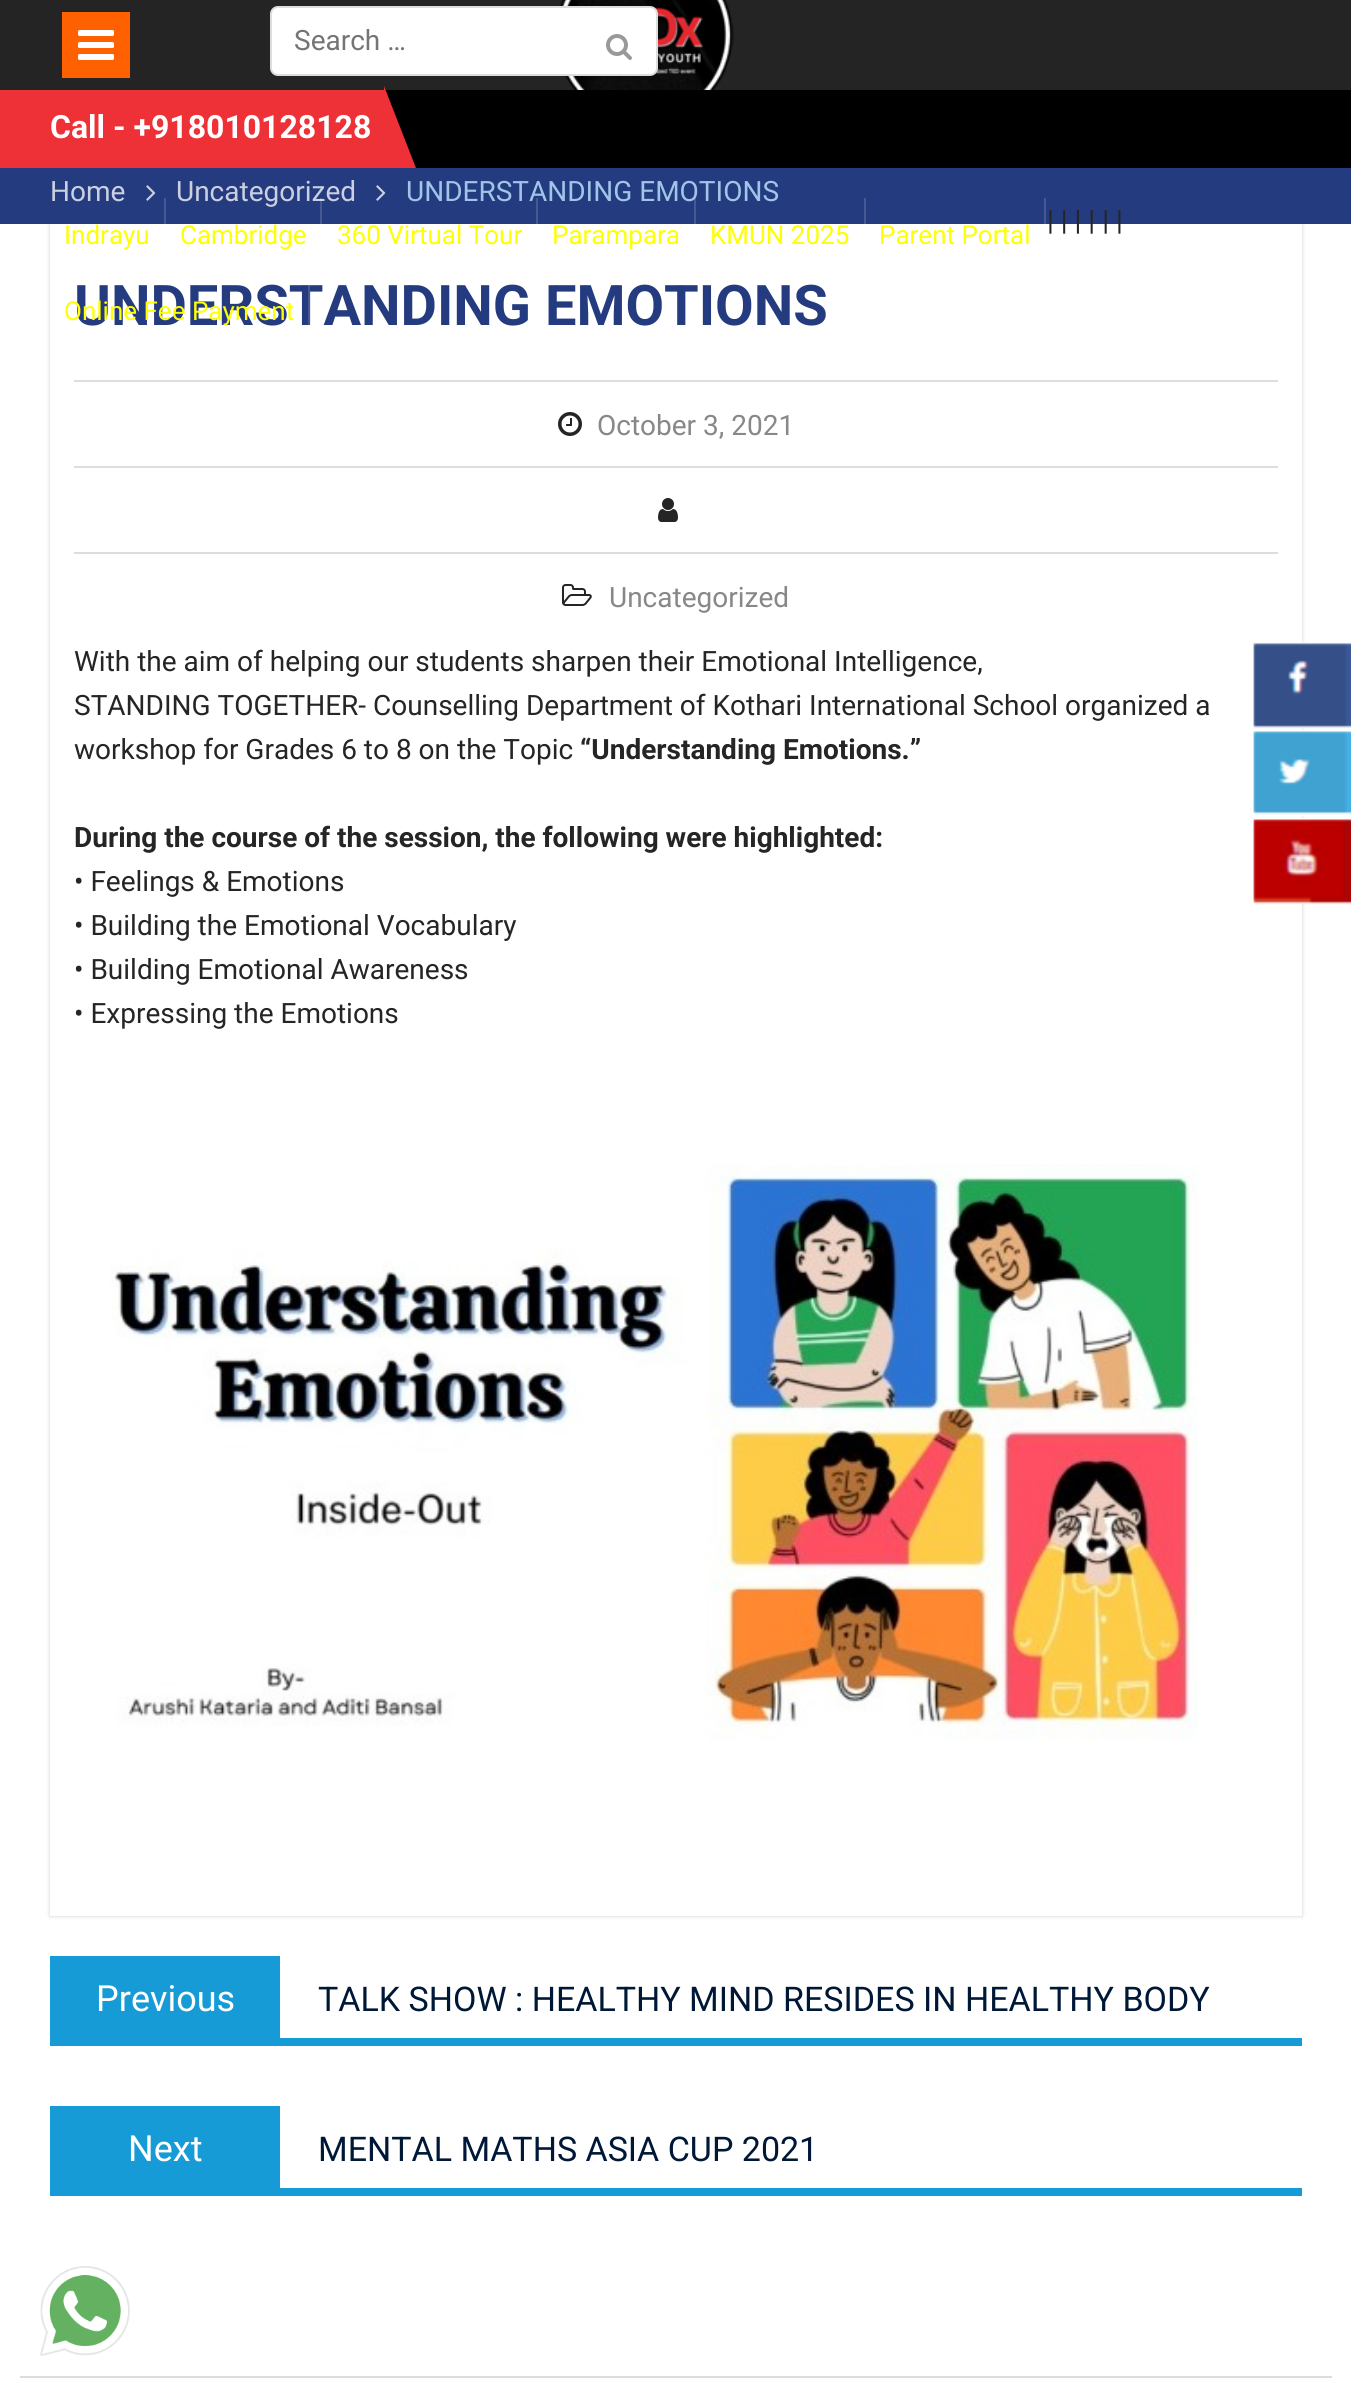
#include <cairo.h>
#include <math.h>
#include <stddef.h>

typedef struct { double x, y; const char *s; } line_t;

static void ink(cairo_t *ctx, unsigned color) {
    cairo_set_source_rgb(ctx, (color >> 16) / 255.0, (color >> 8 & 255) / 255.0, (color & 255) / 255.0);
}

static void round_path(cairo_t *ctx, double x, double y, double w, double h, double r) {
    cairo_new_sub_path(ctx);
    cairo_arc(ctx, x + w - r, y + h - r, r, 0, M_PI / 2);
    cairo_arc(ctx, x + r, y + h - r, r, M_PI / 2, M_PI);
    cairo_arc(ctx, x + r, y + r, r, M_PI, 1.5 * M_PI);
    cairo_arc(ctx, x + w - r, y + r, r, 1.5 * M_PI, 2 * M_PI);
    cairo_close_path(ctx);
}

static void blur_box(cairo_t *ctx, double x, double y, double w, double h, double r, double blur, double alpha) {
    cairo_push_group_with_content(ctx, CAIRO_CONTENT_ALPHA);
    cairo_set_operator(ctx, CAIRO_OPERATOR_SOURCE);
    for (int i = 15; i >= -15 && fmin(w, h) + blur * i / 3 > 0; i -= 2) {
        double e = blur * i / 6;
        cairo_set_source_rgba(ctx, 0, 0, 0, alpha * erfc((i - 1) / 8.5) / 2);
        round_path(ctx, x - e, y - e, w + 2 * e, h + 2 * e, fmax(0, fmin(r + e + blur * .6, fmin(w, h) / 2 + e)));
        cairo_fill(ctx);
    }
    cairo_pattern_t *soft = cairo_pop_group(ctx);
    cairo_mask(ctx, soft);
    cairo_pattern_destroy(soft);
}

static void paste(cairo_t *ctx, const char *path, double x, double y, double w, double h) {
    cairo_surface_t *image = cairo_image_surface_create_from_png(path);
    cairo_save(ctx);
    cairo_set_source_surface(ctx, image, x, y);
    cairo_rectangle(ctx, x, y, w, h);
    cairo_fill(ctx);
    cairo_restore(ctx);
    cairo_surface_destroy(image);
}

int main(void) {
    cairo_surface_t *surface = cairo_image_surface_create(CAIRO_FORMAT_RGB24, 1351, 2396);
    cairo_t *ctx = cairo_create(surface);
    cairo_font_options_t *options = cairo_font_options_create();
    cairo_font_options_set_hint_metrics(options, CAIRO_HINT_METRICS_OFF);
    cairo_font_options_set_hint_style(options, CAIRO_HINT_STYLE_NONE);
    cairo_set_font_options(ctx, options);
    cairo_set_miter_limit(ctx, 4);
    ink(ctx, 0xFFFFFF);
    cairo_paint(ctx);
    ink(ctx, 0x242424);
    cairo_rectangle(ctx, 0, 0, 1351, 90);
    cairo_fill(ctx);
    paste(ctx, "media/3.png", 559, 0, 175, 90);
    ink(ctx, 0xFFFFFF);
    round_path(ctx, 271, 7, 386, 68, 7);
    cairo_fill_preserve(ctx);
    ink(ctx, 0xDDDDDD);
    cairo_stroke(ctx);
    cairo_select_font_face(ctx, "Roboto", CAIRO_FONT_SLANT_NORMAL, CAIRO_FONT_WEIGHT_NORMAL);
    cairo_set_font_size(ctx, 28);
    ink(ctx, 0x757575);
    cairo_move_to(ctx, 294, 50);
    cairo_show_text(ctx, "Search …");
    paste(ctx, "media/1.png", 606, 34, 26, 26);
    ink(ctx, 0xFF6000);
    cairo_rectangle(ctx, 62, 12, 68, 66);
    cairo_fill(ctx);
    paste(ctx, "media/2.png", 78, 30, 36, 30);
    ink(ctx, 0x000000);
    cairo_rectangle(ctx, 385, 90, 966, 78);
    cairo_fill(ctx);
    ink(ctx, 0xED3136);
    cairo_rectangle(ctx, 0, 90, 384, 78);
    cairo_fill(ctx);
    cairo_select_font_face(ctx, "Roboto", CAIRO_FONT_SLANT_NORMAL, CAIRO_FONT_WEIGHT_BOLD);
    cairo_set_font_size(ctx, 32);
    ink(ctx, 0xFFFFFF);
    cairo_move_to(ctx, 50, 138);
    cairo_show_text(ctx, "Call - +918010128128");
    ink(ctx, 0xED3136);
    cairo_new_path(ctx);
    cairo_move_to(ctx, 384, 168);
    cairo_line_to(ctx, 384, 86);
    cairo_line_to(ctx, 416, 168);
    cairo_close_path(ctx);
    cairo_fill(ctx);
    cairo_save(ctx);
    cairo_set_fill_rule(ctx, CAIRO_FILL_RULE_EVEN_ODD);
    cairo_new_path(ctx);
    cairo_move_to(ctx, 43, 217);
    cairo_line_to(ctx, 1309, 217);
    cairo_line_to(ctx, 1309, 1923);
    cairo_line_to(ctx, 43, 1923);
    cairo_close_path(ctx);
    cairo_move_to(ctx, 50, 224);
    cairo_line_to(ctx, 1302, 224);
    cairo_line_to(ctx, 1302, 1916);
    cairo_line_to(ctx, 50, 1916);
    cairo_close_path(ctx);
    cairo_clip(ctx);
    ink(ctx, 0xCFCFCF);
    blur_box(ctx, 50, 224, 1252, 1692, 0, 2, 1);
    cairo_restore(ctx);
    ink(ctx, 0x253B80);
    cairo_rectangle(ctx, 0, 168, 1351, 56);
    cairo_fill(ctx);
    cairo_set_source_rgba(ctx, 1, 1, 1, 0.15);
    cairo_rectangle(ctx, 164, 198, 2, 26);
    cairo_fill(ctx);
    cairo_select_font_face(ctx, "Roboto", CAIRO_FONT_SLANT_NORMAL, CAIRO_FONT_WEIGHT_NORMAL);
    cairo_set_font_size(ctx, 26);
    ink(ctx, 0xFFFF00);
    cairo_move_to(ctx, 64, 244);
    cairo_show_text(ctx, "Indrayu");
    cairo_set_font_size(ctx, 28);
    ink(ctx, 0xCBD0E1);
    cairo_move_to(ctx, 176, 201);
    cairo_show_text(ctx, "Uncategorized");
    cairo_set_source_rgba(ctx, 1, 1, 1, 0.15);
    cairo_rectangle(ctx, 320, 198, 2, 26);
    cairo_fill(ctx);
    cairo_set_font_size(ctx, 26);
    ink(ctx, 0xFFFF00);
    cairo_move_to(ctx, 180, 244);
    cairo_show_text(ctx, "Cambridge");
    cairo_set_font_size(ctx, 28);
    ink(ctx, 0xA0C5E8);
    cairo_move_to(ctx, 406, 201);
    cairo_show_text(ctx, "UNDERSTANDING EMOTIONS");
    cairo_set_source_rgba(ctx, 1, 1, 1, 0.15);
    cairo_rectangle(ctx, 536, 198, 2, 26);
    cairo_fill(ctx);
    cairo_set_font_size(ctx, 26);
    ink(ctx, 0xFFFF00);
    cairo_move_to(ctx, 337, 244);
    cairo_show_text(ctx, "360 Virtual Tour");
    cairo_set_source_rgba(ctx, 1, 1, 1, 0.15);
    cairo_rectangle(ctx, 694, 198, 2, 26);
    cairo_fill(ctx);
    ink(ctx, 0xFFFF00);
    cairo_move_to(ctx, 552, 244);
    cairo_show_text(ctx, "Parampara");
    cairo_set_source_rgba(ctx, 1, 1, 1, 0.15);
    cairo_rectangle(ctx, 864, 198, 2, 26);
    cairo_fill(ctx);
    ink(ctx, 0xFFFF00);
    cairo_move_to(ctx, 710, 244);
    cairo_show_text(ctx, "KMUN 2025");
    cairo_set_source_rgba(ctx, 1, 1, 1, 0.15);
    cairo_rectangle(ctx, 1044, 198, 2, 26);
    cairo_fill(ctx);
    ink(ctx, 0xFFFF00);
    cairo_move_to(ctx, 879, 244);
    cairo_show_text(ctx, "Parent Portal");
    cairo_set_font_size(ctx, 28);
    ink(ctx, 0x252525);
    cairo_move_to(ctx, 1047, 230);
    cairo_show_text(ctx, "| | | | | |");
    cairo_select_font_face(ctx, "Roboto", CAIRO_FONT_SLANT_NORMAL, CAIRO_FONT_WEIGHT_BOLD);
    cairo_set_font_size(ctx, 56);
    ink(ctx, 0x253B80);
    cairo_move_to(ctx, 74, 325);
    cairo_show_text(ctx, "UNDERSTANDING EMOTIONS");
    cairo_set_source_rgba(ctx, 1, 1, 1, 0.15);
    cairo_rectangle(ctx, 308, 285, 2, 40);
    cairo_fill(ctx);
    cairo_select_font_face(ctx, "Roboto", CAIRO_FONT_SLANT_NORMAL, CAIRO_FONT_WEIGHT_NORMAL);
    cairo_set_font_size(ctx, 26);
    ink(ctx, 0xFFFF00);
    cairo_move_to(ctx, 64, 320);
    cairo_show_text(ctx, "Online Fee Payment");
    cairo_set_font_size(ctx, 28);
    ink(ctx, 0xCBD0E1);
    cairo_move_to(ctx, 50, 201);
    cairo_show_text(ctx, "Home");
    paste(ctx, "media/4.png", 146, 185, 10, 16);
    paste(ctx, "media/4.png", 376, 185, 10, 16);
    ink(ctx, 0xDDDDDD);
    cairo_rectangle(ctx, 20, 2376, 1312, 2);
    cairo_fill(ctx);
    cairo_rectangle(ctx, 74, 380, 1204, 2);
    cairo_fill(ctx);
    paste(ctx, "media/5.png", 558, 412, 24, 24);
    ink(ctx, 0x888888);
    cairo_move_to(ctx, 597, 435);
    cairo_show_text(ctx, "October 3, 2021");
    ink(ctx, 0xDDDDDD);
    cairo_rectangle(ctx, 74, 466, 1204, 2);
    cairo_fill(ctx);
    paste(ctx, "media/6.png", 658, 498, 20, 24);
    cairo_rectangle(ctx, 74, 552, 1204, 2);
    cairo_fill(ctx);
    paste(ctx, "media/7.png", 562, 584, 30, 22);
    ink(ctx, 0x888888);
    cairo_move_to(ctx, 609, 607);
    cairo_show_text(ctx, "Uncategorized");
    ink(ctx, 0x252525);
    {
        static const line_t items[] = {
            {74, 671, "With the aim of helping our students sharpen their Emotional Intelligence,"},
            {74, 715, "STANDING TOGETHER- Counselling Department of Kothari International School organized a"},
            {74, 759, "workshop for Grades 6 to 8 on the Topic"},
        };
        for (size_t i = 0; i < sizeof items / sizeof *items; i++) {
            cairo_move_to(ctx, items[i].x, items[i].y);
            cairo_show_text(ctx, items[i].s);
        }
    }
    cairo_select_font_face(ctx, "Roboto", CAIRO_FONT_SLANT_NORMAL, CAIRO_FONT_WEIGHT_BOLD);
    cairo_move_to(ctx, 580, 759);
    cairo_show_text(ctx, "“Understanding Emotions.”");
    cairo_move_to(ctx, 74, 847);
    cairo_show_text(ctx, "During the course of the session, the following were highlighted:");
    cairo_select_font_face(ctx, "Roboto", CAIRO_FONT_SLANT_NORMAL, CAIRO_FONT_WEIGHT_NORMAL);
    {
        static const line_t items[] = {
            {74, 891, "• Feelings & Emotions"},
            {74, 935, "• Building the Emotional Vocabulary"},
            {74, 979, "• Building Emotional Awareness"},
            {74, 1023, "• Expressing the Emotions"},
        };
        for (size_t i = 0; i < sizeof items / sizeof *items; i++) {
            cairo_move_to(ctx, items[i].x, items[i].y);
            cairo_show_text(ctx, items[i].s);
        }
    }
    paste(ctx, "media/8.png", 111, 1164, 1087, 577);
    ink(ctx, 0x179BD7);
    cairo_rectangle(ctx, 50, 2038, 1252, 8);
    cairo_fill(ctx);
    cairo_rectangle(ctx, 50, 1956, 230, 82);
    cairo_fill(ctx);
    cairo_set_font_size(ctx, 36);
    ink(ctx, 0xFFFFFF);
    cairo_move_to(ctx, 96, 2011);
    cairo_show_text(ctx, "Previous");
    cairo_set_font_size(ctx, 34);
    ink(ctx, 0x001837);
    cairo_move_to(ctx, 318, 2011);
    cairo_show_text(ctx, "TALK SHOW : HEALTHY MIND RESIDES IN HEALTHY BODY");
    ink(ctx, 0x179BD7);
    cairo_rectangle(ctx, 50, 2188, 1252, 8);
    cairo_fill(ctx);
    cairo_rectangle(ctx, 50, 2106, 230, 82);
    cairo_fill(ctx);
    cairo_set_font_size(ctx, 36);
    ink(ctx, 0xFFFFFF);
    cairo_move_to(ctx, 128, 2161);
    cairo_show_text(ctx, "Next");
    cairo_set_font_size(ctx, 34);
    ink(ctx, 0x001837);
    cairo_move_to(ctx, 318, 2161);
    cairo_show_text(ctx, "MENTAL MATHS ASIA CUP 2021");
    paste(ctx, "media/9.png", 1252, 642, 99, 87);
    paste(ctx, "media/10.png", 1253, 729, 98, 88);
    paste(ctx, "media/11.png", 1253, 817, 98, 88);
    paste(ctx, "media/12.png", 40, 2266, 90, 90);
    cairo_surface_write_to_png(surface, "image.png");
    cairo_font_options_destroy(options);
    cairo_destroy(ctx);
    cairo_surface_destroy(surface);
    return 0;
}
